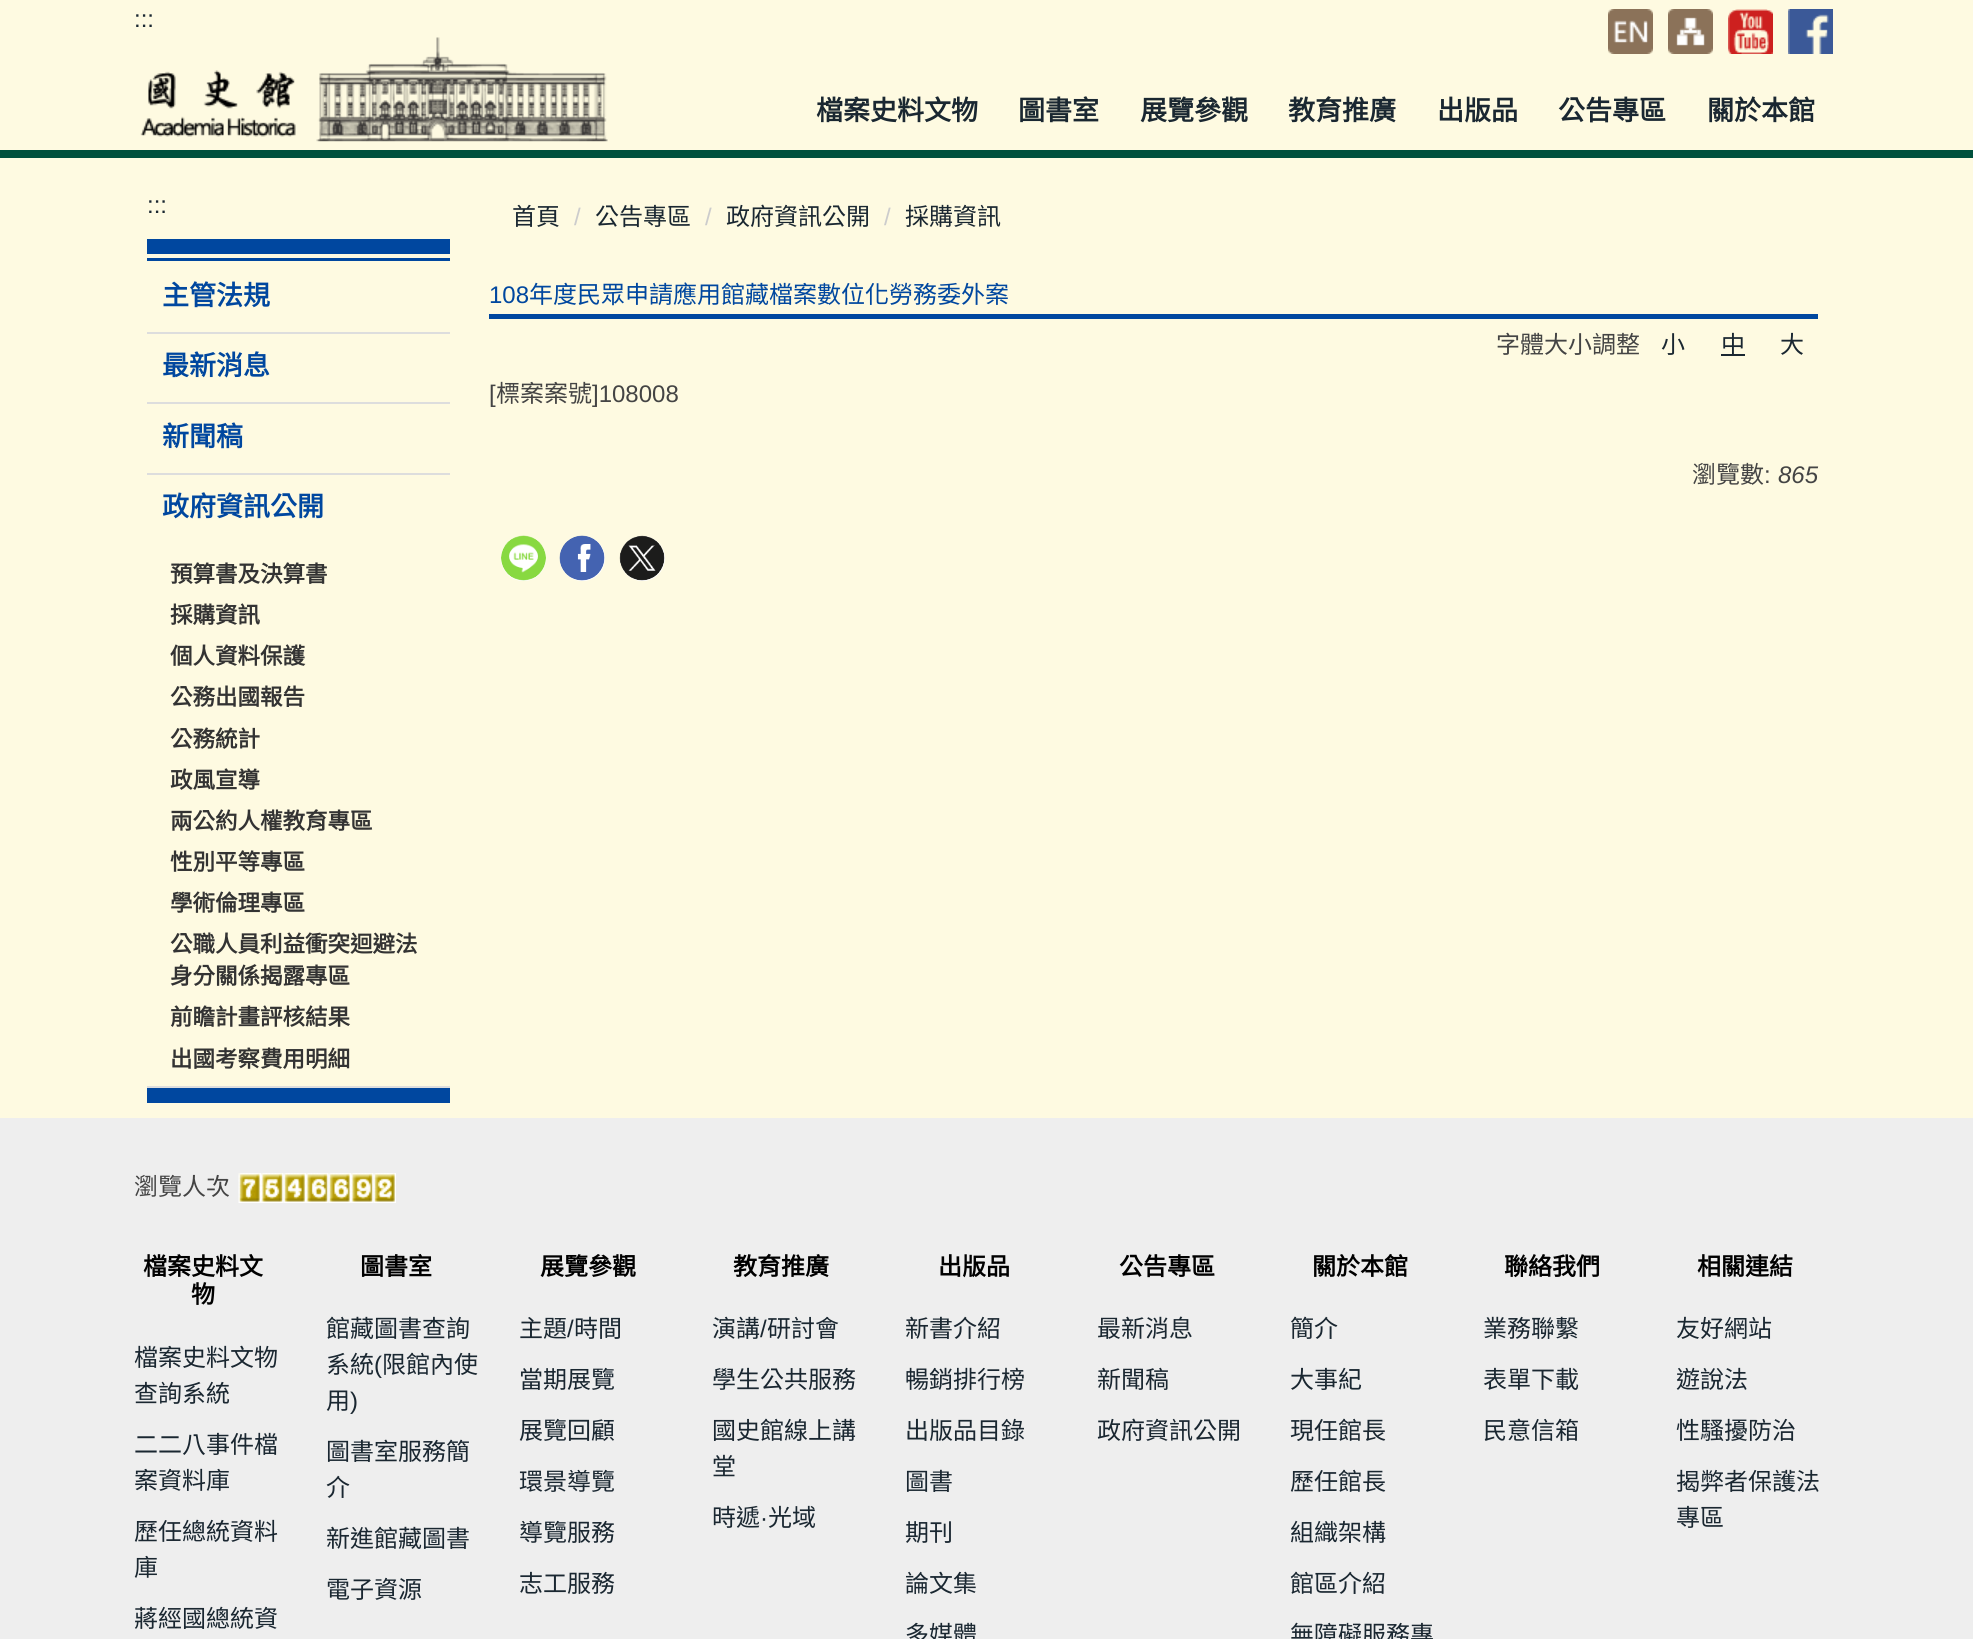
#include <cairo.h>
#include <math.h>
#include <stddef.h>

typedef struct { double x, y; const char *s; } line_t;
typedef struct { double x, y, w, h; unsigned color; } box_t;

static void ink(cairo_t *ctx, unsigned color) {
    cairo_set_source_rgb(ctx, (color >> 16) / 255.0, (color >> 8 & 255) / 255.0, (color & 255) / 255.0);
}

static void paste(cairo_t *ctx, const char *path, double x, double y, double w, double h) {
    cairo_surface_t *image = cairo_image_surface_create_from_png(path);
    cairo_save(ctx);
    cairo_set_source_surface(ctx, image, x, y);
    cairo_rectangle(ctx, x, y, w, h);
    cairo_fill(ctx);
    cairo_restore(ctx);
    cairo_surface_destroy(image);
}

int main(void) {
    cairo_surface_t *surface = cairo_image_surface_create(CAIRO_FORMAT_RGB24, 1973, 1639);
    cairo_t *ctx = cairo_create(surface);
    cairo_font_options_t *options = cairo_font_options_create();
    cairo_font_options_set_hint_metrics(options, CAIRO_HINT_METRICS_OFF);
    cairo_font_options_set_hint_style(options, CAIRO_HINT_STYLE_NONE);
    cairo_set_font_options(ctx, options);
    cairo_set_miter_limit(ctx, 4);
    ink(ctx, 0xFEFAE1);
    cairo_paint(ctx);
    ink(ctx, 0x00503C);
    cairo_rectangle(ctx, 0, 150, 1973, 8);
    cairo_fill(ctx);
    cairo_select_font_face(ctx, "Liberation Sans", CAIRO_FONT_SLANT_NORMAL, CAIRO_FONT_WEIGHT_NORMAL);
    cairo_set_font_size(ctx, 24);
    ink(ctx, 0x1A2731);
    cairo_move_to(ctx, 134, 27);
    cairo_show_text(ctx, ":::");
    paste(ctx, "media/1.png", 1608, 9, 45, 45);
    paste(ctx, "media/2.png", 1668, 9, 45, 45);
    paste(ctx, "media/3.png", 1728, 9, 45, 45);
    paste(ctx, "media/4.png", 1788, 9, 45, 45);
    paste(ctx, "media/5.png", 140, 37, 468, 105);
    cairo_select_font_face(ctx, "Noto Sans CJK TC", CAIRO_FONT_SLANT_NORMAL, CAIRO_FONT_WEIGHT_BOLD);
    cairo_set_font_size(ctx, 27);
    {
        static const line_t items[] = {
            {816, 120, "檔案史料文物"},
            {1018, 120, "圖書室"},
            {1140, 120, "展覽參觀"},
            {1288, 120, "教育推廣"},
            {1437, 120, "出版品"},
            {1558, 120, "公告專區"},
            {1707, 120, "關於本館"},
        };
        for (size_t i = 0; i < sizeof items / sizeof *items; i++) {
            cairo_move_to(ctx, items[i].x, items[i].y);
            cairo_show_text(ctx, items[i].s);
        }
    }
    cairo_select_font_face(ctx, "Liberation Sans", CAIRO_FONT_SLANT_NORMAL, CAIRO_FONT_WEIGHT_NORMAL);
    cairo_set_font_size(ctx, 24);
    cairo_move_to(ctx, 147, 213);
    cairo_show_text(ctx, ":::");
    {
        static const box_t items[] = {
            {147, 239, 303, 15, 0x00479F},
            {147, 1088, 303, 15, 0x00479F},
            {147, 258, 303, 3, 0x00479F},
            {147, 332, 303, 2, 0xDDDDDD},
        };
        for (size_t i = 0; i < sizeof items / sizeof *items; i++) {
            ink(ctx, items[i].color);
            cairo_rectangle(ctx, items[i].x, items[i].y, items[i].w, items[i].h);
            cairo_fill(ctx);
        }
    }
    cairo_select_font_face(ctx, "Noto Sans CJK TC", CAIRO_FONT_SLANT_NORMAL, CAIRO_FONT_WEIGHT_BOLD);
    cairo_set_font_size(ctx, 27);
    ink(ctx, 0x00479F);
    cairo_move_to(ctx, 162, 305);
    cairo_show_text(ctx, "主管法規");
    ink(ctx, 0xDDDDDD);
    cairo_rectangle(ctx, 147, 402, 303, 2);
    cairo_fill(ctx);
    ink(ctx, 0x00479F);
    cairo_move_to(ctx, 162, 375);
    cairo_show_text(ctx, "最新消息");
    ink(ctx, 0xDDDDDD);
    cairo_rectangle(ctx, 147, 473, 303, 2);
    cairo_fill(ctx);
    ink(ctx, 0x00479F);
    cairo_move_to(ctx, 162, 446);
    cairo_show_text(ctx, "新聞稿");
    ink(ctx, 0xDDDDDD);
    cairo_rectangle(ctx, 147, 1086, 303, 2);
    cairo_fill(ctx);
    ink(ctx, 0x00479F);
    cairo_move_to(ctx, 162, 516);
    cairo_show_text(ctx, "政府資訊公開");
    cairo_set_font_size(ctx, 22.5);
    ink(ctx, 0x333333);
    {
        static const line_t items[] = {
            {170, 582, "預算書及決算書"},
            {170, 623, "採購資訊"},
            {170, 664, "個人資料保護"},
            {170, 705, "公務出國報告"},
            {170, 747, "公務統計"},
            {170, 788, "政風宣導"},
            {170, 829, "兩公約人權教育專區"},
            {170, 870, "性別平等專區"},
            {170, 911, "學術倫理專區"},
            {170, 952, "公職人員利益衝突迴避法"},
            {170, 984, "身分關係揭露專區"},
            {170, 1025, "前瞻計畫評核結果"},
            {170, 1067, "出國考察費用明細"},
        };
        for (size_t i = 0; i < sizeof items / sizeof *items; i++) {
            cairo_move_to(ctx, items[i].x, items[i].y);
            cairo_show_text(ctx, items[i].s);
        }
    }
    cairo_select_font_face(ctx, "Noto Sans CJK TC", CAIRO_FONT_SLANT_NORMAL, CAIRO_FONT_WEIGHT_NORMAL);
    cairo_set_font_size(ctx, 24);
    ink(ctx, 0x1A2731);
    cairo_move_to(ctx, 512, 225);
    cairo_show_text(ctx, "首頁");
    cairo_select_font_face(ctx, "Liberation Sans", CAIRO_FONT_SLANT_NORMAL, CAIRO_FONT_WEIGHT_NORMAL);
    ink(ctx, 0xCCCCCC);
    cairo_move_to(ctx, 574, 225);
    cairo_show_text(ctx, "/");
    cairo_select_font_face(ctx, "Noto Sans CJK TC", CAIRO_FONT_SLANT_NORMAL, CAIRO_FONT_WEIGHT_NORMAL);
    ink(ctx, 0x1A2731);
    cairo_move_to(ctx, 595, 225);
    cairo_show_text(ctx, "公告專區");
    cairo_select_font_face(ctx, "Liberation Sans", CAIRO_FONT_SLANT_NORMAL, CAIRO_FONT_WEIGHT_NORMAL);
    ink(ctx, 0xCCCCCC);
    cairo_move_to(ctx, 705, 225);
    cairo_show_text(ctx, "/");
    cairo_select_font_face(ctx, "Noto Sans CJK TC", CAIRO_FONT_SLANT_NORMAL, CAIRO_FONT_WEIGHT_NORMAL);
    ink(ctx, 0x1A2731);
    cairo_move_to(ctx, 726, 225);
    cairo_show_text(ctx, "政府資訊公開");
    cairo_select_font_face(ctx, "Liberation Sans", CAIRO_FONT_SLANT_NORMAL, CAIRO_FONT_WEIGHT_NORMAL);
    ink(ctx, 0xCCCCCC);
    cairo_move_to(ctx, 884, 225);
    cairo_show_text(ctx, "/");
    cairo_select_font_face(ctx, "Noto Sans CJK TC", CAIRO_FONT_SLANT_NORMAL, CAIRO_FONT_WEIGHT_NORMAL);
    ink(ctx, 0x1A2731);
    cairo_move_to(ctx, 905, 225);
    cairo_show_text(ctx, "採購資訊");
    ink(ctx, 0x00479F);
    cairo_rectangle(ctx, 489, 314, 1329, 5);
    cairo_fill(ctx);
    cairo_select_font_face(ctx, "Liberation Sans", CAIRO_FONT_SLANT_NORMAL, CAIRO_FONT_WEIGHT_NORMAL);
    cairo_move_to(ctx, 489, 303);
    cairo_show_text(ctx, "108");
    cairo_select_font_face(ctx, "Noto Sans CJK TC", CAIRO_FONT_SLANT_NORMAL, CAIRO_FONT_WEIGHT_NORMAL);
    cairo_move_to(ctx, 529, 303);
    cairo_show_text(ctx, "年度民眾申請應用館藏檔案數位化勞務委外案");
    ink(ctx, 0x444444);
    cairo_move_to(ctx, 1496, 353);
    cairo_show_text(ctx, "字體大小調整");
    ink(ctx, 0x1A2731);
    cairo_move_to(ctx, 1661, 353);
    cairo_show_text(ctx, "小");
    cairo_rectangle(ctx, 1721, 354, 24, 2);
    cairo_fill(ctx);
    cairo_move_to(ctx, 1721, 353);
    cairo_show_text(ctx, "中");
    cairo_move_to(ctx, 1780, 353);
    cairo_show_text(ctx, "大");
    cairo_select_font_face(ctx, "Liberation Sans", CAIRO_FONT_SLANT_NORMAL, CAIRO_FONT_WEIGHT_NORMAL);
    ink(ctx, 0x444444);
    cairo_move_to(ctx, 489, 402);
    cairo_show_text(ctx, "[");
    cairo_select_font_face(ctx, "Noto Sans CJK TC", CAIRO_FONT_SLANT_NORMAL, CAIRO_FONT_WEIGHT_NORMAL);
    cairo_move_to(ctx, 496, 402);
    cairo_show_text(ctx, "標案案號");
    cairo_select_font_face(ctx, "Liberation Sans", CAIRO_FONT_SLANT_NORMAL, CAIRO_FONT_WEIGHT_NORMAL);
    cairo_move_to(ctx, 592, 402);
    cairo_show_text(ctx, "]108008");
    cairo_select_font_face(ctx, "Noto Sans CJK TC", CAIRO_FONT_SLANT_NORMAL, CAIRO_FONT_WEIGHT_NORMAL);
    cairo_move_to(ctx, 1692, 483);
    cairo_show_text(ctx, "瀏覽數");
    cairo_select_font_face(ctx, "Liberation Sans", CAIRO_FONT_SLANT_NORMAL, CAIRO_FONT_WEIGHT_NORMAL);
    cairo_move_to(ctx, 1764, 483);
    cairo_show_text(ctx, ":");
    cairo_select_font_face(ctx, "Liberation Sans", CAIRO_FONT_SLANT_ITALIC, CAIRO_FONT_WEIGHT_NORMAL);
    cairo_move_to(ctx, 1778, 483);
    cairo_show_text(ctx, "865");
    ink(ctx, 0xFFFFFF);
    cairo_new_path(ctx);
    cairo_arc(ctx, 523.5, 558.5, 22.5, 0, 2 * M_PI);
    cairo_fill(ctx);
    paste(ctx, "media/6.png", 501, 535, 45, 46);
    cairo_arc(ctx, 582.5, 558.5, 22.5, 0, 2 * M_PI);
    cairo_fill(ctx);
    paste(ctx, "media/7.png", 559, 535, 46, 46);
    cairo_arc(ctx, 642.5, 558.5, 22.5, 0, 2 * M_PI);
    cairo_fill(ctx);
    paste(ctx, "media/8.png", 619, 535, 46, 46);
    ink(ctx, 0xEEEEEE);
    cairo_rectangle(ctx, 0, 1118, 1973, 521);
    cairo_fill(ctx);
    cairo_select_font_face(ctx, "Noto Sans CJK TC", CAIRO_FONT_SLANT_NORMAL, CAIRO_FONT_WEIGHT_NORMAL);
    ink(ctx, 0x444444);
    cairo_move_to(ctx, 134, 1195);
    cairo_show_text(ctx, "瀏覽人次");
    paste(ctx, "media/9.png", 238, 1173, 23, 30);
    paste(ctx, "media/10.png", 261, 1173, 23, 30);
    paste(ctx, "media/11.png", 283, 1173, 23, 30);
    paste(ctx, "media/12.png", 306, 1173, 23, 30);
    paste(ctx, "media/13.png", 328, 1173, 23, 30);
    paste(ctx, "media/14.png", 351, 1173, 23, 30);
    paste(ctx, "media/15.png", 373, 1173, 23, 30);
    cairo_select_font_face(ctx, "Noto Sans CJK TC", CAIRO_FONT_SLANT_NORMAL, CAIRO_FONT_WEIGHT_BOLD);
    ink(ctx, 0x000000);
    cairo_move_to(ctx, 143, 1275);
    cairo_show_text(ctx, "檔案史料文");
    cairo_move_to(ctx, 191, 1303);
    cairo_show_text(ctx, "物");
    cairo_select_font_face(ctx, "Noto Sans CJK TC", CAIRO_FONT_SLANT_NORMAL, CAIRO_FONT_WEIGHT_NORMAL);
    ink(ctx, 0x1A2731);
    {
        static const line_t items[] = {
            {134, 1366, "檔案史料文物"},
            {134, 1402, "查詢系統"},
            {134, 1453, "二二八事件檔"},
            {134, 1489, "案資料庫"},
            {134, 1540, "歷任總統資料"},
            {134, 1576, "庫"},
            {134, 1627, "蔣經國總統資"},
        };
        for (size_t i = 0; i < sizeof items / sizeof *items; i++) {
            cairo_move_to(ctx, items[i].x, items[i].y);
            cairo_show_text(ctx, items[i].s);
        }
    }
    cairo_select_font_face(ctx, "Noto Sans CJK TC", CAIRO_FONT_SLANT_NORMAL, CAIRO_FONT_WEIGHT_BOLD);
    ink(ctx, 0x000000);
    cairo_move_to(ctx, 360, 1275);
    cairo_show_text(ctx, "圖書室");
    cairo_select_font_face(ctx, "Noto Sans CJK TC", CAIRO_FONT_SLANT_NORMAL, CAIRO_FONT_WEIGHT_NORMAL);
    ink(ctx, 0x1A2731);
    cairo_move_to(ctx, 326, 1337);
    cairo_show_text(ctx, "館藏圖書查詢");
    cairo_move_to(ctx, 326, 1373);
    cairo_show_text(ctx, "系統");
    cairo_select_font_face(ctx, "Liberation Sans", CAIRO_FONT_SLANT_NORMAL, CAIRO_FONT_WEIGHT_NORMAL);
    cairo_move_to(ctx, 374, 1373);
    cairo_show_text(ctx, "(");
    cairo_select_font_face(ctx, "Noto Sans CJK TC", CAIRO_FONT_SLANT_NORMAL, CAIRO_FONT_WEIGHT_NORMAL);
    cairo_move_to(ctx, 382, 1373);
    cairo_show_text(ctx, "限館內使");
    cairo_move_to(ctx, 326, 1409);
    cairo_show_text(ctx, "用");
    cairo_select_font_face(ctx, "Liberation Sans", CAIRO_FONT_SLANT_NORMAL, CAIRO_FONT_WEIGHT_NORMAL);
    cairo_move_to(ctx, 350, 1409);
    cairo_show_text(ctx, ")");
    cairo_select_font_face(ctx, "Noto Sans CJK TC", CAIRO_FONT_SLANT_NORMAL, CAIRO_FONT_WEIGHT_NORMAL);
    {
        static const line_t items[] = {
            {326, 1460, "圖書室服務簡"},
            {326, 1496, "介"},
            {326, 1547, "新進館藏圖書"},
            {326, 1598, "電子資源"},
        };
        for (size_t i = 0; i < sizeof items / sizeof *items; i++) {
            cairo_move_to(ctx, items[i].x, items[i].y);
            cairo_show_text(ctx, items[i].s);
        }
    }
    cairo_select_font_face(ctx, "Noto Sans CJK TC", CAIRO_FONT_SLANT_NORMAL, CAIRO_FONT_WEIGHT_BOLD);
    ink(ctx, 0x000000);
    cairo_move_to(ctx, 540, 1275);
    cairo_show_text(ctx, "展覽參觀");
    cairo_select_font_face(ctx, "Noto Sans CJK TC", CAIRO_FONT_SLANT_NORMAL, CAIRO_FONT_WEIGHT_NORMAL);
    ink(ctx, 0x1A2731);
    cairo_move_to(ctx, 519, 1337);
    cairo_show_text(ctx, "主題");
    cairo_select_font_face(ctx, "Liberation Sans", CAIRO_FONT_SLANT_NORMAL, CAIRO_FONT_WEIGHT_NORMAL);
    cairo_move_to(ctx, 567, 1337);
    cairo_show_text(ctx, "/");
    cairo_select_font_face(ctx, "Noto Sans CJK TC", CAIRO_FONT_SLANT_NORMAL, CAIRO_FONT_WEIGHT_NORMAL);
    {
        static const line_t items[] = {
            {574, 1337, "時間"},
            {519, 1388, "當期展覽"},
            {519, 1439, "展覽回顧"},
            {519, 1490, "環景導覽"},
            {519, 1541, "導覽服務"},
            {519, 1592, "志工服務"},
        };
        for (size_t i = 0; i < sizeof items / sizeof *items; i++) {
            cairo_move_to(ctx, items[i].x, items[i].y);
            cairo_show_text(ctx, items[i].s);
        }
    }
    cairo_select_font_face(ctx, "Noto Sans CJK TC", CAIRO_FONT_SLANT_NORMAL, CAIRO_FONT_WEIGHT_BOLD);
    ink(ctx, 0x000000);
    cairo_move_to(ctx, 733, 1275);
    cairo_show_text(ctx, "教育推廣");
    cairo_select_font_face(ctx, "Noto Sans CJK TC", CAIRO_FONT_SLANT_NORMAL, CAIRO_FONT_WEIGHT_NORMAL);
    ink(ctx, 0x1A2731);
    cairo_move_to(ctx, 712, 1337);
    cairo_show_text(ctx, "演講");
    cairo_select_font_face(ctx, "Liberation Sans", CAIRO_FONT_SLANT_NORMAL, CAIRO_FONT_WEIGHT_NORMAL);
    cairo_move_to(ctx, 760, 1337);
    cairo_show_text(ctx, "/");
    cairo_select_font_face(ctx, "Noto Sans CJK TC", CAIRO_FONT_SLANT_NORMAL, CAIRO_FONT_WEIGHT_NORMAL);
    {
        static const line_t items[] = {
            {767, 1337, "研討會"},
            {712, 1388, "學生公共服務"},
            {712, 1439, "國史館線上講"},
            {712, 1475, "堂"},
            {712, 1526, "時遞"},
        };
        for (size_t i = 0; i < sizeof items / sizeof *items; i++) {
            cairo_move_to(ctx, items[i].x, items[i].y);
            cairo_show_text(ctx, items[i].s);
        }
    }
    cairo_select_font_face(ctx, "Liberation Sans", CAIRO_FONT_SLANT_NORMAL, CAIRO_FONT_WEIGHT_NORMAL);
    cairo_move_to(ctx, 760, 1526);
    cairo_show_text(ctx, "·");
    cairo_select_font_face(ctx, "Noto Sans CJK TC", CAIRO_FONT_SLANT_NORMAL, CAIRO_FONT_WEIGHT_NORMAL);
    cairo_move_to(ctx, 768, 1526);
    cairo_show_text(ctx, "光域");
    cairo_select_font_face(ctx, "Noto Sans CJK TC", CAIRO_FONT_SLANT_NORMAL, CAIRO_FONT_WEIGHT_BOLD);
    ink(ctx, 0x000000);
    cairo_move_to(ctx, 938, 1275);
    cairo_show_text(ctx, "出版品");
    cairo_select_font_face(ctx, "Noto Sans CJK TC", CAIRO_FONT_SLANT_NORMAL, CAIRO_FONT_WEIGHT_NORMAL);
    ink(ctx, 0x1A2731);
    {
        static const line_t items[] = {
            {905, 1337, "新書介紹"},
            {905, 1388, "暢銷排行榜"},
            {905, 1439, "出版品目錄"},
            {905, 1490, "圖書"},
            {905, 1541, "期刊"},
            {905, 1592, "論文集"},
            {905, 1643, "多媒體"},
        };
        for (size_t i = 0; i < sizeof items / sizeof *items; i++) {
            cairo_move_to(ctx, items[i].x, items[i].y);
            cairo_show_text(ctx, items[i].s);
        }
    }
    cairo_select_font_face(ctx, "Noto Sans CJK TC", CAIRO_FONT_SLANT_NORMAL, CAIRO_FONT_WEIGHT_BOLD);
    ink(ctx, 0x000000);
    cairo_move_to(ctx, 1119, 1275);
    cairo_show_text(ctx, "公告專區");
    cairo_select_font_face(ctx, "Noto Sans CJK TC", CAIRO_FONT_SLANT_NORMAL, CAIRO_FONT_WEIGHT_NORMAL);
    ink(ctx, 0x1A2731);
    {
        static const line_t items[] = {
            {1097, 1337, "最新消息"},
            {1097, 1388, "新聞稿"},
            {1097, 1439, "政府資訊公開"},
        };
        for (size_t i = 0; i < sizeof items / sizeof *items; i++) {
            cairo_move_to(ctx, items[i].x, items[i].y);
            cairo_show_text(ctx, items[i].s);
        }
    }
    cairo_select_font_face(ctx, "Noto Sans CJK TC", CAIRO_FONT_SLANT_NORMAL, CAIRO_FONT_WEIGHT_BOLD);
    ink(ctx, 0x000000);
    cairo_move_to(ctx, 1312, 1275);
    cairo_show_text(ctx, "關於本館");
    cairo_select_font_face(ctx, "Noto Sans CJK TC", CAIRO_FONT_SLANT_NORMAL, CAIRO_FONT_WEIGHT_NORMAL);
    ink(ctx, 0x1A2731);
    {
        static const line_t items[] = {
            {1290, 1337, "簡介"},
            {1290, 1388, "大事紀"},
            {1290, 1439, "現任館長"},
            {1290, 1490, "歷任館長"},
            {1290, 1541, "組織架構"},
            {1290, 1592, "館區介紹"},
            {1290, 1643, "無障礙服務專"},
        };
        for (size_t i = 0; i < sizeof items / sizeof *items; i++) {
            cairo_move_to(ctx, items[i].x, items[i].y);
            cairo_show_text(ctx, items[i].s);
        }
    }
    cairo_select_font_face(ctx, "Noto Sans CJK TC", CAIRO_FONT_SLANT_NORMAL, CAIRO_FONT_WEIGHT_BOLD);
    ink(ctx, 0x000000);
    cairo_move_to(ctx, 1504, 1275);
    cairo_show_text(ctx, "聯絡我們");
    cairo_select_font_face(ctx, "Noto Sans CJK TC", CAIRO_FONT_SLANT_NORMAL, CAIRO_FONT_WEIGHT_NORMAL);
    ink(ctx, 0x1A2731);
    {
        static const line_t items[] = {
            {1483, 1337, "業務聯繫"},
            {1483, 1388, "表單下載"},
            {1483, 1439, "民意信箱"},
        };
        for (size_t i = 0; i < sizeof items / sizeof *items; i++) {
            cairo_move_to(ctx, items[i].x, items[i].y);
            cairo_show_text(ctx, items[i].s);
        }
    }
    cairo_select_font_face(ctx, "Noto Sans CJK TC", CAIRO_FONT_SLANT_NORMAL, CAIRO_FONT_WEIGHT_BOLD);
    ink(ctx, 0x000000);
    cairo_move_to(ctx, 1697, 1275);
    cairo_show_text(ctx, "相關連結");
    cairo_select_font_face(ctx, "Noto Sans CJK TC", CAIRO_FONT_SLANT_NORMAL, CAIRO_FONT_WEIGHT_NORMAL);
    ink(ctx, 0x1A2731);
    {
        static const line_t items[] = {
            {1676, 1337, "友好網站"},
            {1676, 1388, "遊說法"},
            {1676, 1439, "性騷擾防治"},
            {1676, 1490, "揭弊者保護法"},
            {1676, 1526, "專區"},
        };
        for (size_t i = 0; i < sizeof items / sizeof *items; i++) {
            cairo_move_to(ctx, items[i].x, items[i].y);
            cairo_show_text(ctx, items[i].s);
        }
    }
    cairo_surface_write_to_png(surface, "image.png");
    cairo_font_options_destroy(options);
    cairo_destroy(ctx);
    cairo_surface_destroy(surface);
    return 0;
}
